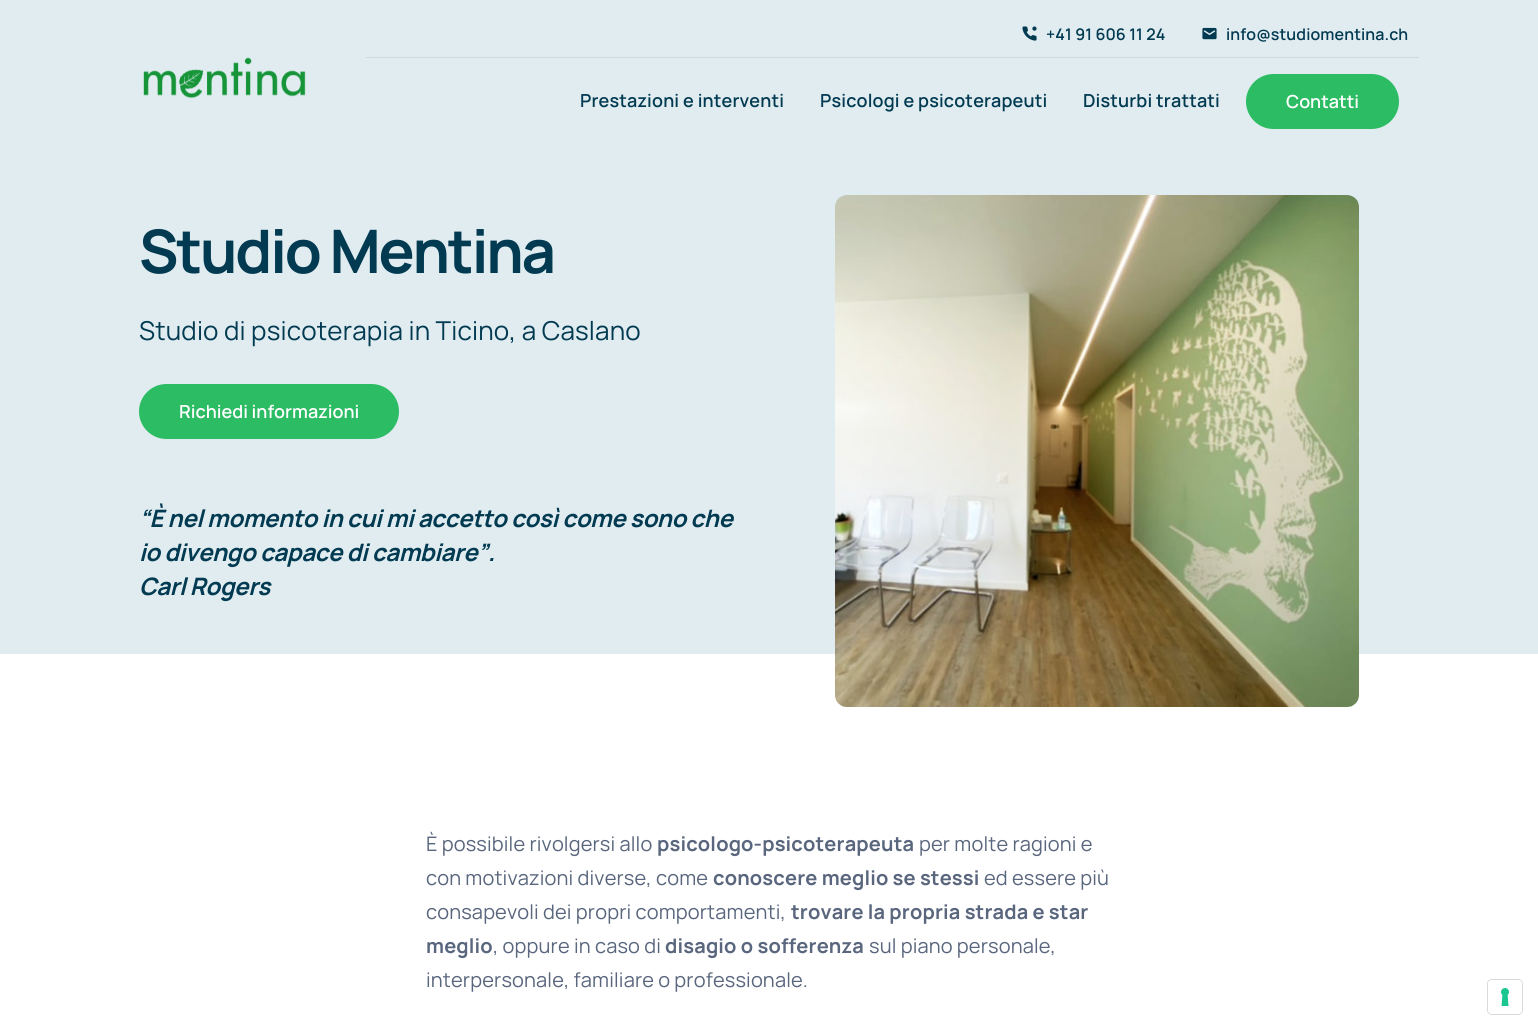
#include <cairo.h>
#include <math.h>
#include <stddef.h>

typedef struct { double x, y; const char *s; } line_t;

static void ink(cairo_t *ctx, unsigned color) {
    cairo_set_source_rgb(ctx, (color >> 16) / 255.0, (color >> 8 & 255) / 255.0, (color & 255) / 255.0);
}

static void write_spaced(cairo_t *ctx, double x, double y, const char *s, double letter, double word) {
    cairo_move_to(ctx, x, y);
    while (*s) {
        char ch[5] = {0};
        int n = 0;
        do ch[n++] = *s++; while ((*s & 0xC0) == 0x80);
        cairo_show_text(ctx, ch);
        cairo_rel_move_to(ctx, letter + word * (*ch == ' '), 0);
    }
}

static void round_path(cairo_t *ctx, double x, double y, double w, double h, double r) {
    cairo_new_sub_path(ctx);
    cairo_arc(ctx, x + w - r, y + h - r, r, 0, M_PI / 2);
    cairo_arc(ctx, x + r, y + h - r, r, M_PI / 2, M_PI);
    cairo_arc(ctx, x + r, y + r, r, M_PI, 1.5 * M_PI);
    cairo_arc(ctx, x + w - r, y + r, r, 1.5 * M_PI, 2 * M_PI);
    cairo_close_path(ctx);
}

static void paste(cairo_t *ctx, const char *path, double x, double y, double w, double h) {
    cairo_surface_t *image = cairo_image_surface_create_from_png(path);
    cairo_save(ctx);
    cairo_set_source_surface(ctx, image, x, y);
    cairo_rectangle(ctx, x, y, w, h);
    cairo_fill(ctx);
    cairo_restore(ctx);
    cairo_surface_destroy(image);
}

int main(void) {
    cairo_surface_t *surface = cairo_image_surface_create(CAIRO_FORMAT_RGB24, 1538, 1030);
    cairo_t *ctx = cairo_create(surface);
    cairo_font_options_t *options = cairo_font_options_create();
    cairo_font_options_set_hint_metrics(options, CAIRO_HINT_METRICS_OFF);
    cairo_font_options_set_hint_style(options, CAIRO_HINT_STYLE_NONE);
    cairo_set_font_options(ctx, options);
    cairo_set_miter_limit(ctx, 4);
    ink(ctx, 0xFFFFFF);
    cairo_paint(ctx);
    ink(ctx, 0xE0ECF0);
    cairo_rectangle(ctx, 0, 0, 1538, 654);
    cairo_fill(ctx);
    paste(ctx, "media/1.png", 143, 57, 163, 42);
    ink(ctx, 0xCADAE0);
    cairo_rectangle(ctx, 366, 57, 1053, 1);
    cairo_fill(ctx);
    paste(ctx, "media/2.png", 1022, 26, 15, 15);
    cairo_select_font_face(ctx, "Manrope SemiBold", CAIRO_FONT_SLANT_NORMAL, CAIRO_FONT_WEIGHT_NORMAL);
    cairo_set_font_size(ctx, 16);
    ink(ctx, 0x023A51);
    write_spaced(ctx, 1046, 40, "+41 91 606 11 24", 0.1, 0);
    paste(ctx, "media/3.png", 1202, 27, 15, 13);
    write_spaced(ctx, 1226, 40, "info@studiomentina.ch", 0.1, 0);
    cairo_set_font_size(ctx, 18);
    {
        static const line_t items[] = {
            {580, 107, "Prestazioni e interventi"},
            {820, 107, "Psicologi e psicoterapeuti"},
            {1083, 107, "Disturbi trattati"},
        };
        for (size_t i = 0; i < sizeof items / sizeof *items; i++) {
            write_spaced(ctx, items[i].x, items[i].y, items[i].s, 0.15, 0);
        }
    }
    ink(ctx, 0x2CBC63);
    round_path(ctx, 1246, 74, 153, 55, 27.5);
    cairo_fill(ctx);
    ink(ctx, 0xFFFFFF);
    cairo_move_to(ctx, 1286, 108);
    cairo_show_text(ctx, "Contatti");
    cairo_select_font_face(ctx, "Manrope", CAIRO_FONT_SLANT_NORMAL, CAIRO_FONT_WEIGHT_BOLD);
    cairo_set_font_size(ctx, 60);
    ink(ctx, 0x023A51);
    write_spaced(ctx, 139, 273, "Studio Mentina", -2.2, 0);
    cairo_select_font_face(ctx, "Manrope", CAIRO_FONT_SLANT_NORMAL, CAIRO_FONT_WEIGHT_NORMAL);
    cairo_set_font_size(ctx, 26);
    write_spaced(ctx, 139, 340, "Studio di psicoterapia in Ticino, a Caslano", 0.15, 0);
    ink(ctx, 0x2CBC63);
    round_path(ctx, 139, 384, 260, 55, 27.5);
    cairo_fill(ctx);
    cairo_select_font_face(ctx, "Manrope SemiBold", CAIRO_FONT_SLANT_NORMAL, CAIRO_FONT_WEIGHT_NORMAL);
    cairo_set_font_size(ctx, 18);
    ink(ctx, 0xFFFFFF);
    cairo_move_to(ctx, 179, 418);
    cairo_show_text(ctx, "Richiedi informazioni");
    cairo_select_font_face(ctx, "Manrope", CAIRO_FONT_SLANT_ITALIC, CAIRO_FONT_WEIGHT_BOLD);
    cairo_set_font_size(ctx, 24);
    ink(ctx, 0x023A51);
    {
        static const line_t items[] = {
            {139, 527, "“È nel momento in cui mi accetto così come sono che"},
            {139, 561, "io divengo capace di cambiare”."},
            {139, 595, "Carl Rogers"},
        };
        for (size_t i = 0; i < sizeof items / sizeof *items; i++) {
            write_spaced(ctx, items[i].x, items[i].y, items[i].s, -0.38, 0);
        }
    }
    paste(ctx, "media/4.png", 835, 195, 524, 512);
    cairo_select_font_face(ctx, "Manrope", CAIRO_FONT_SLANT_NORMAL, CAIRO_FONT_WEIGHT_NORMAL);
    cairo_set_font_size(ctx, 20);
    ink(ctx, 0x59667D);
    write_spaced(ctx, 426, 851, "È possibile rivolgersi allo", 0.15, 0);
    cairo_select_font_face(ctx, "Manrope", CAIRO_FONT_SLANT_NORMAL, CAIRO_FONT_WEIGHT_BOLD);
    write_spaced(ctx, 657, 851, "psicologo-psicoterapeuta", 0.15, 0);
    cairo_select_font_face(ctx, "Manrope", CAIRO_FONT_SLANT_NORMAL, CAIRO_FONT_WEIGHT_NORMAL);
    write_spaced(ctx, 919, 851, "per molte ragioni e", 0.15, 0);
    write_spaced(ctx, 426, 885, "con motivazioni diverse, come", 0.15, 0);
    cairo_select_font_face(ctx, "Manrope", CAIRO_FONT_SLANT_NORMAL, CAIRO_FONT_WEIGHT_BOLD);
    write_spaced(ctx, 713, 885, "conoscere meglio se stessi", 0.15, 0);
    cairo_select_font_face(ctx, "Manrope", CAIRO_FONT_SLANT_NORMAL, CAIRO_FONT_WEIGHT_NORMAL);
    write_spaced(ctx, 984, 885, "ed essere più", 0.15, 0);
    write_spaced(ctx, 426, 919, "consapevoli dei propri comportamenti,", 0.15, 0);
    cairo_select_font_face(ctx, "Manrope", CAIRO_FONT_SLANT_NORMAL, CAIRO_FONT_WEIGHT_BOLD);
    write_spaced(ctx, 791, 919, "trovare la propria strada e star", 0.15, 0);
    write_spaced(ctx, 426, 953, "meglio", 0.15, 0);
    cairo_select_font_face(ctx, "Manrope", CAIRO_FONT_SLANT_NORMAL, CAIRO_FONT_WEIGHT_NORMAL);
    write_spaced(ctx, 493, 953, ", oppure in caso di", 0.15, 0);
    cairo_select_font_face(ctx, "Manrope", CAIRO_FONT_SLANT_NORMAL, CAIRO_FONT_WEIGHT_BOLD);
    write_spaced(ctx, 665, 953, "disagio o sofferenza", 0.15, 0);
    cairo_select_font_face(ctx, "Manrope", CAIRO_FONT_SLANT_NORMAL, CAIRO_FONT_WEIGHT_NORMAL);
    write_spaced(ctx, 869, 953, "sul piano personale,", 0.15, 0);
    write_spaced(ctx, 426, 987, "interpersonale, familiare o professionale.", 0.15, 0);
    round_path(ctx, 1487.5, 979.5, 35, 35, 4.5);
    ink(ctx, 0xD9D9D9);
    cairo_set_line_width(ctx, 1);
    cairo_stroke(ctx);
    ink(ctx, 0xFFFFFF);
    round_path(ctx, 1488, 980, 34, 34, 4);
    cairo_fill(ctx);
    paste(ctx, "media/5.png", 1501, 988, 8, 18);
    cairo_surface_write_to_png(surface, "image.png");
    cairo_font_options_destroy(options);
    cairo_destroy(ctx);
    cairo_surface_destroy(surface);
    return 0;
}
